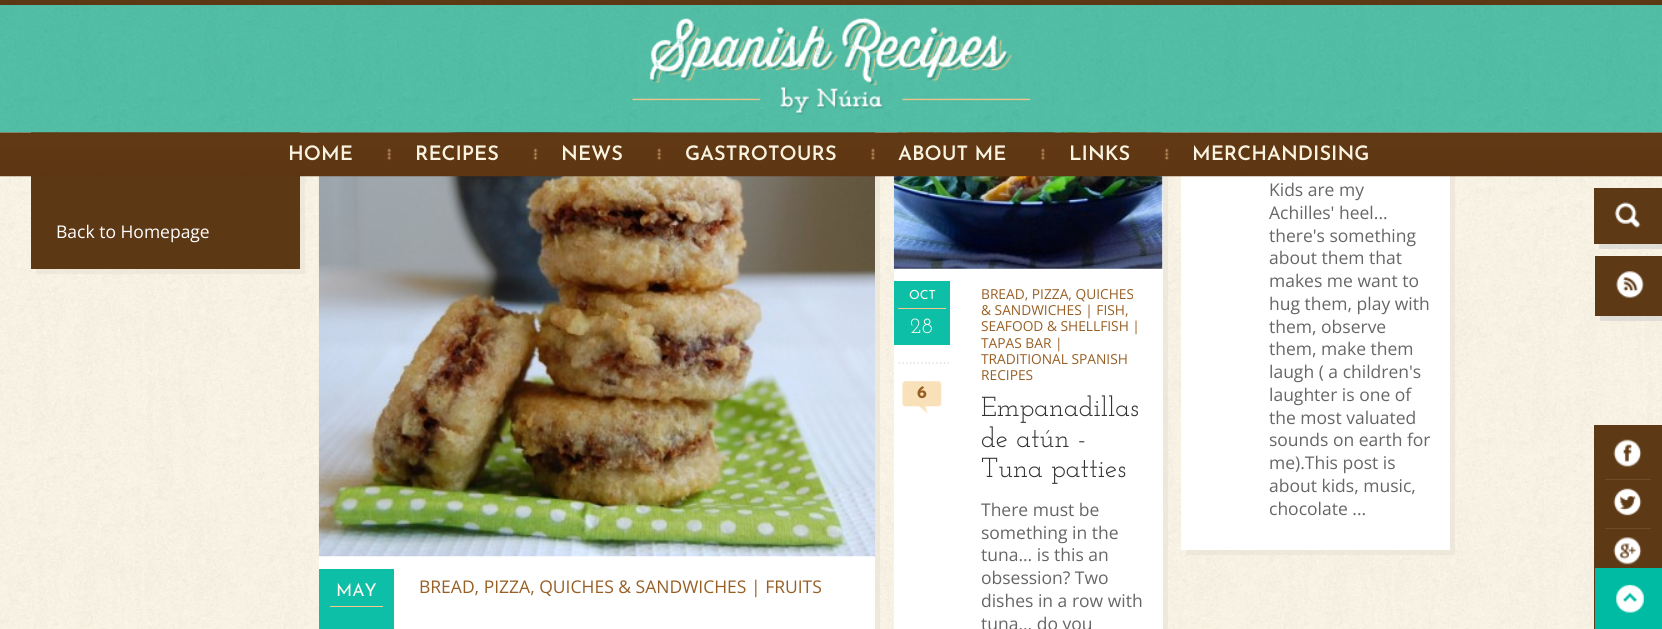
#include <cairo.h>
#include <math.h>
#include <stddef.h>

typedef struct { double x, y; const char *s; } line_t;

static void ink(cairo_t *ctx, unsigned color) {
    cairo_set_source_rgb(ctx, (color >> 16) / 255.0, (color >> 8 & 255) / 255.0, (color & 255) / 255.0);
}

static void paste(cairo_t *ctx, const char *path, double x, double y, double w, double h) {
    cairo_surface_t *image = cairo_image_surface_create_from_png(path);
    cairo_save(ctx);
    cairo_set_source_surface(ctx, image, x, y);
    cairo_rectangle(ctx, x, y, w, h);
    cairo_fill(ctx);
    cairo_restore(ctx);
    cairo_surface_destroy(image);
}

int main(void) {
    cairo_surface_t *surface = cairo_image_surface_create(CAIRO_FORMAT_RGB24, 1662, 629);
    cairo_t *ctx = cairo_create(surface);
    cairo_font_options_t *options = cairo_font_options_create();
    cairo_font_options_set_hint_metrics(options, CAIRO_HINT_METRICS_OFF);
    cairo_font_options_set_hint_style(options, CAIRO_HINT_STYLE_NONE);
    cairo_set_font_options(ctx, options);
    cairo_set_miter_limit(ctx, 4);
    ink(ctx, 0xFFFFFF);
    cairo_paint(ctx);
    paste(ctx, "media/1.png", 0, 132, 1662, 497);
    cairo_set_source_rgba(ctx, 0.898, 0.878, 0.824, 0.5);
    cairo_new_path(ctx);
    cairo_move_to(ctx, 36, 269);
    cairo_line_to(ctx, 36, 274);
    cairo_line_to(ctx, 305, 274);
    cairo_line_to(ctx, 305, 5);
    cairo_line_to(ctx, 300, 5);
    cairo_line_to(ctx, 300, 269);
    cairo_close_path(ctx);
    cairo_fill(ctx);
    ink(ctx, 0x5D3815);
    cairo_rectangle(ctx, 31, 132, 269, 137);
    cairo_fill(ctx);
    cairo_set_source_rgba(ctx, 0.898, 0.878, 0.824, 0.5);
    cairo_new_path(ctx);
    cairo_move_to(ctx, 1186, 550);
    cairo_line_to(ctx, 1186, 555);
    cairo_line_to(ctx, 1455, 555);
    cairo_line_to(ctx, 1455, 5);
    cairo_line_to(ctx, 1450, 5);
    cairo_line_to(ctx, 1450, 550);
    cairo_close_path(ctx);
    cairo_fill(ctx);
    ink(ctx, 0xFFFFFF);
    cairo_rectangle(ctx, 1181, 132, 269, 418);
    cairo_fill(ctx);
    paste(ctx, "media/11.png", 1190, 132, 39, 1);
    cairo_set_source_rgba(ctx, 0.898, 0.878, 0.824, 0.5);
    cairo_new_path(ctx);
    cairo_move_to(ctx, 324, 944);
    cairo_line_to(ctx, 324, 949);
    cairo_line_to(ctx, 880, 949);
    cairo_line_to(ctx, 880, 5);
    cairo_line_to(ctx, 875, 5);
    cairo_line_to(ctx, 875, 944);
    cairo_close_path(ctx);
    cairo_fill(ctx);
    ink(ctx, 0xFFFFFF);
    cairo_rectangle(ctx, 319, 556, 556, 73);
    cairo_fill(ctx);
    paste(ctx, "media/12.png", 318, 132, 557, 425);
    cairo_set_source_rgba(ctx, 0.898, 0.878, 0.824, 0.5);
    cairo_new_path(ctx);
    cairo_move_to(ctx, 899, 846);
    cairo_line_to(ctx, 899, 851);
    cairo_line_to(ctx, 1168, 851);
    cairo_line_to(ctx, 1168, 5);
    cairo_line_to(ctx, 1162, 5);
    cairo_line_to(ctx, 1162, 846);
    cairo_close_path(ctx);
    cairo_fill(ctx);
    ink(ctx, 0xFFFFFF);
    cairo_rectangle(ctx, 894, 132, 269, 497);
    cairo_fill(ctx);
    paste(ctx, "media/13.png", 893, 132, 270, 137);
    paste(ctx, "media/2.png", 0, 5, 1662, 128);
    ink(ctx, 0x5D3815);
    cairo_rectangle(ctx, 0, 0, 1662, 5);
    cairo_fill(ctx);
    paste(ctx, "media/3.png", 632, 17, 398, 98);
    paste(ctx, "media/4.png", 0, 132, 1662, 45);
    cairo_select_font_face(ctx, "Josefin Sans SemiBold", CAIRO_FONT_SLANT_NORMAL, CAIRO_FONT_WEIGHT_NORMAL);
    cairo_set_font_size(ctx, 20);
    ink(ctx, 0xFAF3E0);
    cairo_move_to(ctx, 288, 160);
    cairo_show_text(ctx, "HOME");
    paste(ctx, "media/5.png", 387, 148, 5, 13);
    cairo_move_to(ctx, 415, 160);
    cairo_show_text(ctx, "RECIPES");
    paste(ctx, "media/6.png", 533, 148, 5, 13);
    cairo_move_to(ctx, 561, 160);
    cairo_show_text(ctx, "NEWS");
    paste(ctx, "media/7.png", 657, 148, 5, 13);
    cairo_move_to(ctx, 685, 160);
    cairo_show_text(ctx, "GASTROTOURS");
    paste(ctx, "media/8.png", 871, 148, 4, 12);
    cairo_move_to(ctx, 898, 160);
    cairo_show_text(ctx, "ABOUT ME");
    paste(ctx, "media/9.png", 1041, 148, 4, 12);
    cairo_move_to(ctx, 1069, 160);
    cairo_show_text(ctx, "LINKS");
    paste(ctx, "media/10.png", 1164, 148, 5, 13);
    cairo_move_to(ctx, 1192, 160);
    cairo_show_text(ctx, "MERCHANDISING");
    cairo_select_font_face(ctx, "Open Sans", CAIRO_FONT_SLANT_NORMAL, CAIRO_FONT_WEIGHT_NORMAL);
    cairo_set_font_size(ctx, 17.5);
    ink(ctx, 0xFFFFFF);
    cairo_move_to(ctx, 56, 238);
    cairo_show_text(ctx, "Back to Homepage");
    ink(ctx, 0x666666);
    {
        static const line_t items[] = {
            {1269, 196, "Kids are my"},
            {1269, 219, "Achilles' heel..."},
            {1269, 242, "there's something"},
            {1269, 264, "about them that"},
            {1269, 287, "makes me want to"},
            {1269, 310, "hug them, play with"},
            {1269, 333, "them, observe"},
            {1269, 355, "them, make them"},
            {1269, 378, "laugh ( a children's"},
            {1269, 401, "laughter is one of"},
            {1269, 424, "the most valuated"},
            {1269, 446, "sounds on earth for"},
            {1269, 469, "me).This post is"},
            {1269, 492, "about kids, music,"},
            {1269, 515, "chocolate ..."},
        };
        for (size_t i = 0; i < sizeof items / sizeof *items; i++) {
            cairo_move_to(ctx, items[i].x, items[i].y);
            cairo_show_text(ctx, items[i].s);
        }
    }
    ink(ctx, 0x0EBFA7);
    cairo_rectangle(ctx, 319, 569, 75, 60);
    cairo_fill(ctx);
    cairo_select_font_face(ctx, "Josefin Sans", CAIRO_FONT_SLANT_NORMAL, CAIRO_FONT_WEIGHT_NORMAL);
    ink(ctx, 0xFFF8ED);
    cairo_move_to(ctx, 336, 596);
    cairo_show_text(ctx, "MAY");
    ink(ctx, 0xF2C88B);
    cairo_rectangle(ctx, 330, 606, 53, 1);
    cairo_fill(ctx);
    cairo_select_font_face(ctx, "Open Sans", CAIRO_FONT_SLANT_NORMAL, CAIRO_FONT_WEIGHT_NORMAL);
    ink(ctx, 0x985F25);
    cairo_move_to(ctx, 419, 593);
    cairo_show_text(ctx, "BREAD, PIZZA, QUICHES & SANDWICHES | FRUITS");
    ink(ctx, 0x0EBFA7);
    cairo_rectangle(ctx, 894, 281, 56, 64);
    cairo_fill(ctx);
    cairo_select_font_face(ctx, "Josefin Sans", CAIRO_FONT_SLANT_NORMAL, CAIRO_FONT_WEIGHT_NORMAL);
    cairo_set_font_size(ctx, 12.5);
    ink(ctx, 0xFFF8ED);
    cairo_move_to(ctx, 909, 299);
    cairo_show_text(ctx, "OCT");
    ink(ctx, 0xF2C88B);
    cairo_rectangle(ctx, 898, 308, 48, 1);
    cairo_fill(ctx);
    cairo_select_font_face(ctx, "Josefin Slab", CAIRO_FONT_SLANT_NORMAL, CAIRO_FONT_WEIGHT_NORMAL);
    cairo_set_font_size(ctx, 22);
    ink(ctx, 0xFFF8ED);
    cairo_move_to(ctx, 910, 333);
    cairo_show_text(ctx, "28");
    paste(ctx, "media/14.png", 898, 362, 51, 2);
    paste(ctx, "media/15.png", 902, 381, 40, 33);
    cairo_select_font_face(ctx, "Josefin Sans", CAIRO_FONT_SLANT_NORMAL, CAIRO_FONT_WEIGHT_BOLD);
    cairo_set_font_size(ctx, 17.5);
    ink(ctx, 0x985F25);
    cairo_move_to(ctx, 917, 398);
    cairo_show_text(ctx, "6");
    cairo_select_font_face(ctx, "Open Sans", CAIRO_FONT_SLANT_NORMAL, CAIRO_FONT_WEIGHT_NORMAL);
    cairo_set_font_size(ctx, 13.75);
    {
        static const line_t items[] = {
            {981, 299, "BREAD, PIZZA, QUICHES"},
            {981, 315, "& SANDWICHES | FISH,"},
            {981, 331, "SEAFOOD & SHELLFISH |"},
            {981, 348, "TAPAS BAR |"},
            {981, 364, "TRADITIONAL SPANISH"},
            {981, 380, "RECIPES"},
        };
        for (size_t i = 0; i < sizeof items / sizeof *items; i++) {
            cairo_move_to(ctx, items[i].x, items[i].y);
            cairo_show_text(ctx, items[i].s);
        }
    }
    cairo_select_font_face(ctx, "Josefin Slab", CAIRO_FONT_SLANT_NORMAL, CAIRO_FONT_WEIGHT_NORMAL);
    cairo_set_font_size(ctx, 27.5);
    ink(ctx, 0x333333);
    {
        static const line_t items[] = {
            {981, 416, "Empanadillas"},
            {981, 447, "de atún -"},
            {981, 477, "Tuna patties"},
        };
        for (size_t i = 0; i < sizeof items / sizeof *items; i++) {
            cairo_move_to(ctx, items[i].x, items[i].y);
            cairo_show_text(ctx, items[i].s);
        }
    }
    cairo_select_font_face(ctx, "Open Sans", CAIRO_FONT_SLANT_NORMAL, CAIRO_FONT_WEIGHT_NORMAL);
    cairo_set_font_size(ctx, 17.5);
    ink(ctx, 0x666666);
    {
        static const line_t items[] = {
            {981, 516, "There must be"},
            {981, 539, "something in the"},
            {981, 561, "tuna... is this an"},
            {981, 584, "obsession? Two"},
            {981, 607, "dishes in a row with"},
            {981, 630, "tuna... do you"},
        };
        for (size_t i = 0; i < sizeof items / sizeof *items; i++) {
            cairo_move_to(ctx, items[i].x, items[i].y);
            cairo_show_text(ctx, items[i].s);
        }
    }
    cairo_set_source_rgba(ctx, 0.792, 0.792, 0.792, 0.5);
    cairo_new_path(ctx);
    cairo_move_to(ctx, 1599, 244);
    cairo_line_to(ctx, 1599, 249);
    cairo_line_to(ctx, 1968, 249);
    cairo_line_to(ctx, 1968, 193);
    cairo_line_to(ctx, 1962, 193);
    cairo_line_to(ctx, 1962, 244);
    cairo_close_path(ctx);
    cairo_fill(ctx);
    ink(ctx, 0x5E3915);
    cairo_rectangle(ctx, 1594, 188, 68, 56);
    cairo_fill(ctx);
    paste(ctx, "media/16.png", 1614, 202, 27, 26);
    cairo_set_source_rgba(ctx, 0.792, 0.792, 0.792, 0.5);
    cairo_new_path(ctx);
    cairo_move_to(ctx, 1600, 316);
    cairo_line_to(ctx, 1600, 321);
    cairo_line_to(ctx, 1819, 321);
    cairo_line_to(ctx, 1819, 261);
    cairo_line_to(ctx, 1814, 261);
    cairo_line_to(ctx, 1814, 316);
    cairo_close_path(ctx);
    cairo_fill(ctx);
    ink(ctx, 0x5E3915);
    cairo_rectangle(ctx, 1595, 256, 67, 60);
    cairo_fill(ctx);
    paste(ctx, "media/17.png", 1616, 271, 28, 27);
    cairo_rectangle(ctx, 1594, 425, 68, 204);
    cairo_fill(ctx);
    paste(ctx, "media/18.png", 1613, 439, 29, 29);
    ink(ctx, 0x6C4D27);
    cairo_rectangle(ctx, 1605, 479, 46, 1);
    cairo_fill(ctx);
    paste(ctx, "media/19.png", 1613, 488, 29, 28);
    cairo_rectangle(ctx, 1605, 528, 46, 1);
    cairo_fill(ctx);
    paste(ctx, "media/20.png", 1613, 537, 29, 28);
    ink(ctx, 0x00BBA3);
    cairo_rectangle(ctx, 1595, 568, 67, 61);
    cairo_fill(ctx);
    paste(ctx, "media/21.png", 1616, 584, 28, 29);
    cairo_surface_write_to_png(surface, "image.png");
    cairo_font_options_destroy(options);
    cairo_destroy(ctx);
    cairo_surface_destroy(surface);
    return 0;
}
